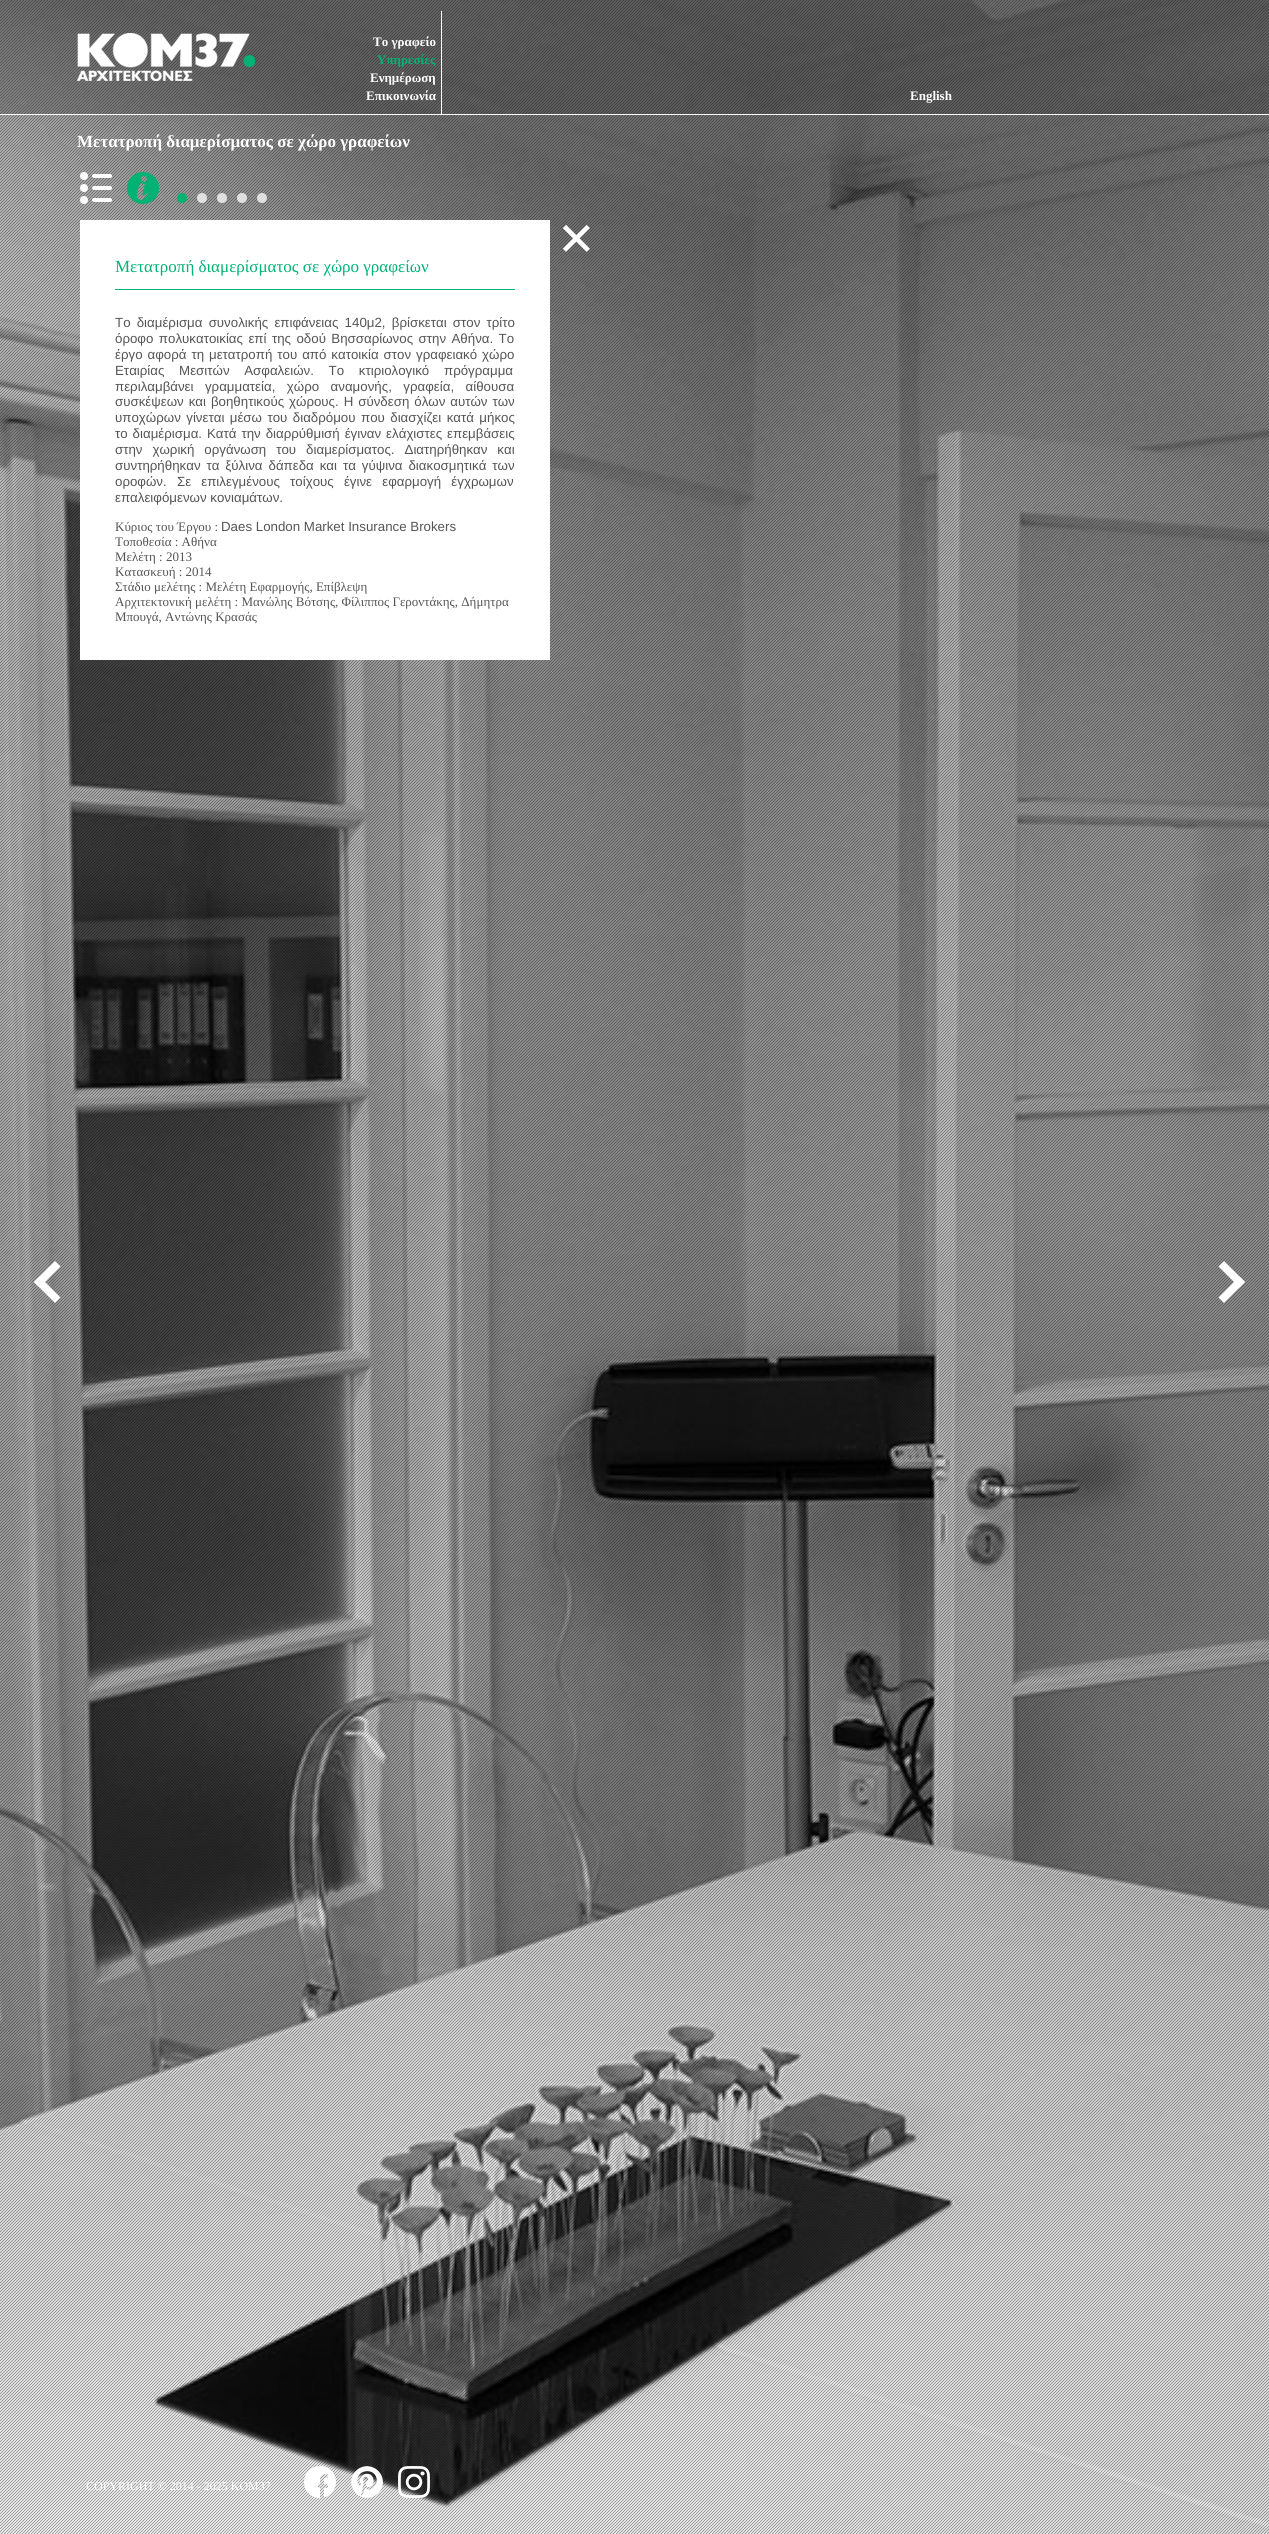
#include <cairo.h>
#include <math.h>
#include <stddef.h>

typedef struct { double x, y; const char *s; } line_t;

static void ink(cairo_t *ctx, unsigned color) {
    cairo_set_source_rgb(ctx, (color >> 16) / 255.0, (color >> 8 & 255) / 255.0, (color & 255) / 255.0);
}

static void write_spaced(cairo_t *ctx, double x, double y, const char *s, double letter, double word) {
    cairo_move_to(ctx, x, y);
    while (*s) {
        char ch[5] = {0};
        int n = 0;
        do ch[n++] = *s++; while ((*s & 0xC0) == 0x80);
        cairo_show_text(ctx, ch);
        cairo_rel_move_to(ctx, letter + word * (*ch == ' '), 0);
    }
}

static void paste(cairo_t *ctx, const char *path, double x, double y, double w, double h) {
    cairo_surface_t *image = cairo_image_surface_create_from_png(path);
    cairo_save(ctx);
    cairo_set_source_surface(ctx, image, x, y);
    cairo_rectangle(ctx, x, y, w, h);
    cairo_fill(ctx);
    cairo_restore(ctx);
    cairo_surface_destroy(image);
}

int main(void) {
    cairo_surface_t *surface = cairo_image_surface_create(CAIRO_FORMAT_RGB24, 1269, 2534);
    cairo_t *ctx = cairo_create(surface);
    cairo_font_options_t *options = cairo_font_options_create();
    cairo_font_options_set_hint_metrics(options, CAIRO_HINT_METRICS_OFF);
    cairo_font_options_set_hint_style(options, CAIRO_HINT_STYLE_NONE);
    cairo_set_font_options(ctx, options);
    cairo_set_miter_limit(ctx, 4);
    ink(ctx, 0xFFFFFF);
    cairo_paint(ctx);
    paste(ctx, "media/2.png", 0, 0, 1269, 2534);
    paste(ctx, "media/3.png", 0, 0, 1269, 2534);
    cairo_set_source_rgba(ctx, 0.145, 0.145, 0.145, 0.25);
    cairo_rectangle(ctx, 0, 0, 1269, 114);
    cairo_fill(ctx);
    ink(ctx, 0xFFFFFF);
    cairo_rectangle(ctx, 0, 114, 1269, 1);
    cairo_fill(ctx);
    paste(ctx, "media/1.png", 77, 33, 178, 48);
    cairo_select_font_face(ctx, "Liberation Serif", CAIRO_FONT_SLANT_NORMAL, CAIRO_FONT_WEIGHT_BOLD);
    cairo_set_font_size(ctx, 13);
    cairo_move_to(ctx, 373, 46);
    cairo_show_text(ctx, "Το γραφείο");
    cairo_rectangle(ctx, 441, 11, 1, 104);
    cairo_fill(ctx);
    ink(ctx, 0x00B374);
    cairo_move_to(ctx, 377, 64);
    cairo_show_text(ctx, "Υπηρεσίες");
    ink(ctx, 0xFFFFFF);
    {
        static const line_t items[] = {
            {370, 82, "Ενημέρωση"},
            {366, 100, "Επικοινωνία"},
            {910, 100, "English"},
        };
        for (size_t i = 0; i < sizeof items / sizeof *items; i++) {
            cairo_move_to(ctx, items[i].x, items[i].y);
            cairo_show_text(ctx, items[i].s);
        }
    }
    cairo_set_font_size(ctx, 17);
    cairo_move_to(ctx, 77, 147);
    cairo_show_text(ctx, "Μετατροπή διαμερίσματος σε χώρο γραφείων");
    paste(ctx, "media/4.png", 80, 172, 32, 32);
    paste(ctx, "media/5.png", 127, 172, 32, 32);
    ink(ctx, 0x00B373);
    cairo_arc(ctx, 182, 198, 5, 0, 2 * M_PI);
    cairo_fill(ctx);
    cairo_set_source_rgba(ctx, 1, 1, 1, 0.75);
    cairo_arc(ctx, 202, 198, 5, 0, 2 * M_PI);
    cairo_fill(ctx);
    cairo_arc(ctx, 222, 198, 5, 0, 2 * M_PI);
    cairo_fill(ctx);
    cairo_arc(ctx, 242, 198, 5, 0, 2 * M_PI);
    cairo_fill(ctx);
    cairo_arc(ctx, 262, 198, 5, 0, 2 * M_PI);
    cairo_fill(ctx);
    ink(ctx, 0xFFFFFF);
    cairo_new_path(ctx);
    cairo_move_to(ctx, 55, 1303);
    cairo_line_to(ctx, 34, 1282);
    cairo_line_to(ctx, 39.5, 1276.5);
    cairo_line_to(ctx, 60.5, 1297.5);
    cairo_close_path(ctx);
    cairo_fill(ctx);
    cairo_new_path(ctx);
    cairo_move_to(ctx, 39.5, 1287.5);
    cairo_line_to(ctx, 34, 1282);
    cairo_line_to(ctx, 55, 1261);
    cairo_line_to(ctx, 60.5, 1266.5);
    cairo_close_path(ctx);
    cairo_fill(ctx);
    cairo_new_path(ctx);
    cairo_move_to(ctx, 1224, 1261);
    cairo_line_to(ctx, 1245, 1282);
    cairo_line_to(ctx, 1239.5, 1287.5);
    cairo_line_to(ctx, 1218.5, 1266.5);
    cairo_close_path(ctx);
    cairo_fill(ctx);
    cairo_new_path(ctx);
    cairo_move_to(ctx, 1239.5, 1276.5);
    cairo_line_to(ctx, 1245, 1282);
    cairo_line_to(ctx, 1224, 1303);
    cairo_line_to(ctx, 1218.5, 1297.5);
    cairo_close_path(ctx);
    cairo_fill(ctx);
    cairo_rectangle(ctx, 80, 220, 470, 440);
    cairo_fill(ctx);
    cairo_set_font_size(ctx, 65);
    cairo_move_to(ctx, 558, 260);
    cairo_show_text(ctx, "×");
    ink(ctx, 0x00B373);
    cairo_rectangle(ctx, 115, 289, 400, 1);
    cairo_fill(ctx);
    cairo_select_font_face(ctx, "Liberation Serif", CAIRO_FONT_SLANT_NORMAL, CAIRO_FONT_WEIGHT_NORMAL);
    cairo_set_font_size(ctx, 17);
    ink(ctx, 0x00B374);
    cairo_move_to(ctx, 115, 272);
    cairo_show_text(ctx, "Μετατροπή διαμερίσματος σε χώρο γραφείων");
    cairo_select_font_face(ctx, "Liberation Sans", CAIRO_FONT_SLANT_NORMAL, CAIRO_FONT_WEIGHT_NORMAL);
    cairo_set_font_size(ctx, 13.3);
    ink(ctx, 0x555555);
    write_spaced(ctx, 115, 327, "Το διαμέρισμα συνολικής επιφάνειας 140μ2, βρίσκεται στον τρίτο", 0, 2.5);
    write_spaced(ctx, 115, 343, "όροφο πολυκατοικίας επί της οδού Βησσαρίωνος στην Αθήνα. Το", 0, 1.75);
    write_spaced(ctx, 115, 359, "έργο αφορά τη μετατροπή του από κατοικία στον γραφειακό χώρο", 0, 1.25);
    write_spaced(ctx, 115, 375, "Εταιρίας Mεσιτών Ασφαλειών. Το κτιριολογικό πρόγραμμα", 0, 11);
    write_spaced(ctx, 115, 391, "περιλαμβάνει γραμματεία, χώρο αναμονής, γραφεία, αίθουσα", 0, 7.75);
    write_spaced(ctx, 115, 406, "συσκέψεων και βοηθητικούς χώρους. Η σύνδεση όλων αυτών των", 0, 1.25);
    write_spaced(ctx, 115, 422, "υποχώρων γίνεται μέσω του διαδρόμου που διασχίζει κατά μήκος", 0, 1.75);
    write_spaced(ctx, 115, 438, "το διαμέρισμα. Κατά την διαρρύθμισή έγιναν ελάχιστες επεμβάσεις", 0, 1.25);
    write_spaced(ctx, 115, 454, "στην χωρική οργάνωση του διαμερίσματος. Διατηρήθηκαν και", 0, 6.25);
    write_spaced(ctx, 115, 470, "συντηρήθηκαν τα ξύλινα δάπεδα και τα γύψινα διακοσμητικά των", 0, 2.25);
    write_spaced(ctx, 115, 486, "οροφών. Σε επιλεγμένους τοίχους έγινε εφαρμογή έγχρωμων", 0, 6.5);
    cairo_move_to(ctx, 115, 502);
    cairo_show_text(ctx, "επαλειφόμενων κονιαμάτων.");
    cairo_select_font_face(ctx, "Liberation Serif", CAIRO_FONT_SLANT_NORMAL, CAIRO_FONT_WEIGHT_NORMAL);
    cairo_set_font_size(ctx, 13);
    cairo_move_to(ctx, 115, 531);
    cairo_show_text(ctx, "Κύριος του Έργου :");
    cairo_select_font_face(ctx, "Liberation Sans", CAIRO_FONT_SLANT_NORMAL, CAIRO_FONT_WEIGHT_NORMAL);
    cairo_set_font_size(ctx, 13.3);
    cairo_move_to(ctx, 221, 531);
    cairo_show_text(ctx, "Daes London Market Insurance Brokers");
    cairo_select_font_face(ctx, "Liberation Serif", CAIRO_FONT_SLANT_NORMAL, CAIRO_FONT_WEIGHT_NORMAL);
    cairo_set_font_size(ctx, 13);
    {
        static const line_t items[] = {
            {115, 546, "Τοποθεσία : Αθήνα"},
            {115, 561, "Μελέτη : 2013"},
            {115, 576, "Κατασκευή : 2014"},
            {115, 591, "Στάδιο μελέτης : Μελέτη Εφαρμογής, Επίβλεψη"},
            {115, 606, "Αρχιτεκτονική μελέτη : Μανώλης Βότσης, Φίλιππος Γεροντάκης, Δήμητρα"},
            {115, 621, "Μπουγά, Αντώνης Κρασάς"},
        };
        for (size_t i = 0; i < sizeof items / sizeof *items; i++) {
            cairo_move_to(ctx, items[i].x, items[i].y);
            cairo_show_text(ctx, items[i].s);
        }
    }
    cairo_set_font_size(ctx, 12);
    ink(ctx, 0xFFFFFF);
    cairo_move_to(ctx, 86, 2490);
    cairo_show_text(ctx, "COPYRIGHT © 2014 - 2025 ΚΟΜ37");
    paste(ctx, "media/6.png", 304, 2466, 32, 32);
    paste(ctx, "media/7.png", 351, 2466, 32, 32);
    paste(ctx, "media/8.png", 398, 2466, 32, 32);
    cairo_surface_write_to_png(surface, "image.png");
    cairo_font_options_destroy(options);
    cairo_destroy(ctx);
    cairo_surface_destroy(surface);
    return 0;
}
